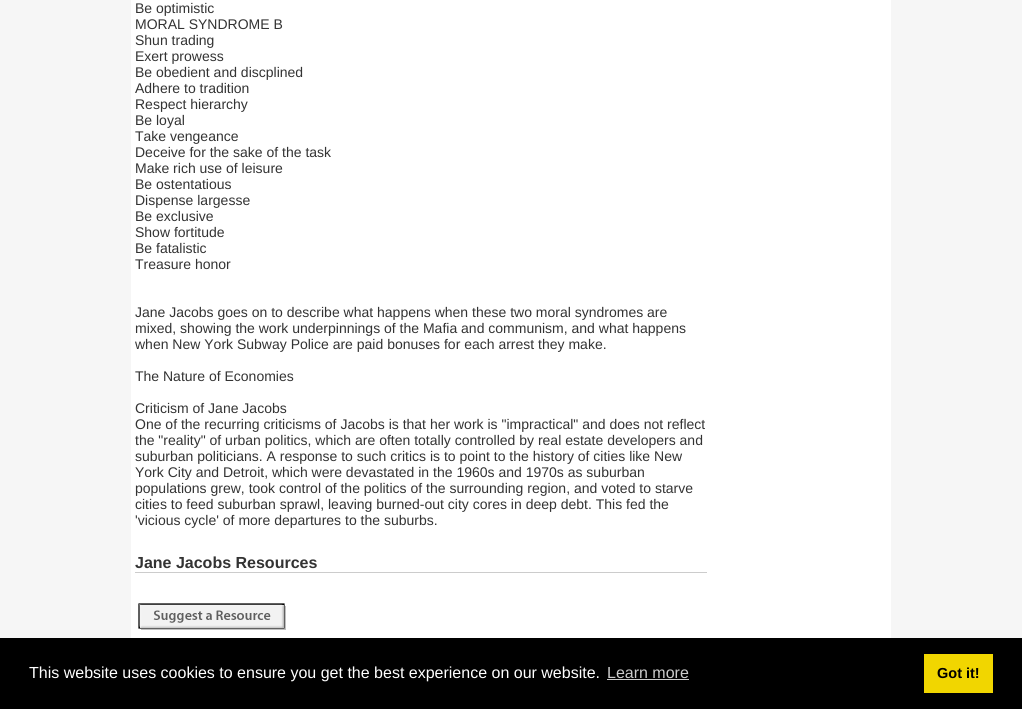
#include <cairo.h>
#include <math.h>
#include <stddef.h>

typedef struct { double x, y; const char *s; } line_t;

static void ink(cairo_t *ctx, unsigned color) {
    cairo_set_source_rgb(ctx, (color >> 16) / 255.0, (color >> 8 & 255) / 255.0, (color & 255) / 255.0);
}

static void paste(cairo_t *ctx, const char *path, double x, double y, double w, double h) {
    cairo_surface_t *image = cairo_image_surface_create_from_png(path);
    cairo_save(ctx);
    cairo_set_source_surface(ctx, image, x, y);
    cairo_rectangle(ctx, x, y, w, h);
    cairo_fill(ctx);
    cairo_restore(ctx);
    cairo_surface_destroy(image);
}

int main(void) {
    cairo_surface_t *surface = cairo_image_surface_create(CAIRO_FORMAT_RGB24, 1022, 709);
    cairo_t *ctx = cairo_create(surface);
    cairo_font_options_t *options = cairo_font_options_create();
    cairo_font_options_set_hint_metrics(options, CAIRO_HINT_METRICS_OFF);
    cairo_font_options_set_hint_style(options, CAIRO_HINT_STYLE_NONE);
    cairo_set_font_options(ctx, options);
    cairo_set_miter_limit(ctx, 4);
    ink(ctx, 0xF6F6F6);
    cairo_paint(ctx);
    ink(ctx, 0xFFFFFF);
    cairo_rectangle(ctx, 131, 0, 760, 638);
    cairo_fill(ctx);
    cairo_select_font_face(ctx, "Liberation Sans", CAIRO_FONT_SLANT_NORMAL, CAIRO_FONT_WEIGHT_NORMAL);
    cairo_set_font_size(ctx, 14);
    ink(ctx, 0x333333);
    {
        static const line_t items[] = {
            {135, 13, "Be optimistic"},
            {135, 29, "MORAL SYNDROME B"},
            {135, 45, "Shun trading"},
            {135, 61, "Exert prowess"},
            {135, 77, "Be obedient and discplined"},
            {135, 93, "Adhere to tradition"},
            {135, 109, "Respect hierarchy"},
            {135, 125, "Be loyal"},
            {135, 141, "Take vengeance"},
            {135, 157, "Deceive for the sake of the task"},
            {135, 173, "Make rich use of leisure"},
            {135, 189, "Be ostentatious"},
            {135, 205, "Dispense largesse"},
            {135, 221, "Be exclusive"},
            {135, 237, "Show fortitude"},
            {135, 253, "Be fatalistic"},
            {135, 269, "Treasure honor"},
            {135, 317, "Jane Jacobs goes on to describe what happens when these two moral syndromes are"},
            {135, 333, "mixed, showing the work underpinnings of the Mafia and communism, and what happens"},
            {135, 349, "when New York Subway Police are paid bonuses for each arrest they make."},
            {135, 381, "The Nature of Economies"},
            {135, 413, "Criticism of Jane Jacobs"},
            {135, 429, "One of the recurring criticisms of Jacobs is that her work is \"impractical\" and does not reflect"},
            {135, 445, "the \"reality\" of urban politics, which are often totally controlled by real estate developers and"},
            {135, 461, "suburban politicians. A response to such critics is to point to the history of cities like New"},
            {135, 477, "York City and Detroit, which were devastated in the 1960s and 1970s as suburban"},
            {135, 493, "populations grew, took control of the politics of the surrounding region, and voted to starve"},
            {135, 509, "cities to feed suburban sprawl, leaving burned-out city cores in deep debt. This fed the"},
            {135, 525, "'vicious cycle' of more departures to the suburbs."},
        };
        for (size_t i = 0; i < sizeof items / sizeof *items; i++) {
            cairo_move_to(ctx, items[i].x, items[i].y);
            cairo_show_text(ctx, items[i].s);
        }
    }
    ink(ctx, 0xCCCCCC);
    cairo_rectangle(ctx, 135, 572, 572, 1);
    cairo_fill(ctx);
    cairo_select_font_face(ctx, "Liberation Sans", CAIRO_FONT_SLANT_NORMAL, CAIRO_FONT_WEIGHT_BOLD);
    cairo_set_font_size(ctx, 16);
    ink(ctx, 0x333333);
    cairo_move_to(ctx, 135, 568);
    cairo_show_text(ctx, "Jane Jacobs Resources");
    paste(ctx, "media/1.png", 138, 603, 148, 27);
    ink(ctx, 0x000000);
    cairo_rectangle(ctx, 0, 638, 1022, 71);
    cairo_fill(ctx);
    cairo_select_font_face(ctx, "Liberation Sans", CAIRO_FONT_SLANT_NORMAL, CAIRO_FONT_WEIGHT_NORMAL);
    ink(ctx, 0xFFFFFF);
    cairo_move_to(ctx, 29, 678);
    cairo_show_text(ctx, "This website uses cookies to ensure you get the best experience on our website.");
    ink(ctx, 0xCCCCCC);
    cairo_move_to(ctx, 607, 678);
    cairo_show_text(ctx, "Learn more");
    cairo_rectangle(ctx, 607, 679, 82, 1);
    cairo_fill(ctx);
    ink(ctx, 0xF1D600);
    cairo_rectangle(ctx, 924, 654, 69, 39);
    cairo_fill(ctx);
    cairo_select_font_face(ctx, "Liberation Sans", CAIRO_FONT_SLANT_NORMAL, CAIRO_FONT_WEIGHT_BOLD);
    cairo_set_font_size(ctx, 14.5);
    ink(ctx, 0x000000);
    cairo_move_to(ctx, 937, 678);
    cairo_show_text(ctx, "Got it!");
    cairo_surface_write_to_png(surface, "image.png");
    cairo_font_options_destroy(options);
    cairo_destroy(ctx);
    cairo_surface_destroy(surface);
    return 0;
}
